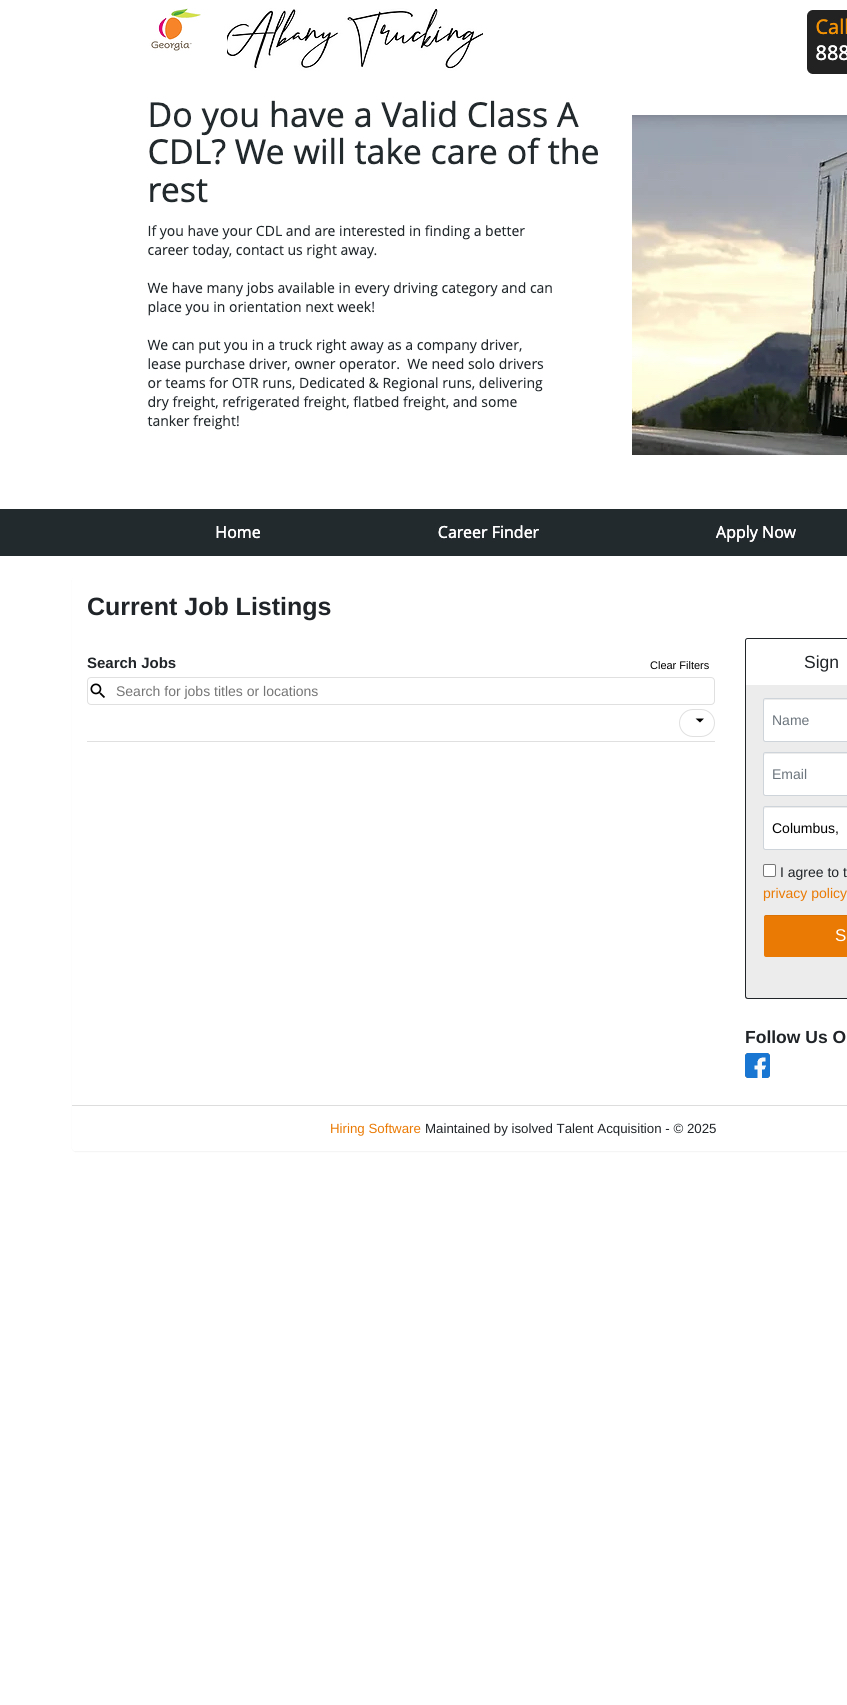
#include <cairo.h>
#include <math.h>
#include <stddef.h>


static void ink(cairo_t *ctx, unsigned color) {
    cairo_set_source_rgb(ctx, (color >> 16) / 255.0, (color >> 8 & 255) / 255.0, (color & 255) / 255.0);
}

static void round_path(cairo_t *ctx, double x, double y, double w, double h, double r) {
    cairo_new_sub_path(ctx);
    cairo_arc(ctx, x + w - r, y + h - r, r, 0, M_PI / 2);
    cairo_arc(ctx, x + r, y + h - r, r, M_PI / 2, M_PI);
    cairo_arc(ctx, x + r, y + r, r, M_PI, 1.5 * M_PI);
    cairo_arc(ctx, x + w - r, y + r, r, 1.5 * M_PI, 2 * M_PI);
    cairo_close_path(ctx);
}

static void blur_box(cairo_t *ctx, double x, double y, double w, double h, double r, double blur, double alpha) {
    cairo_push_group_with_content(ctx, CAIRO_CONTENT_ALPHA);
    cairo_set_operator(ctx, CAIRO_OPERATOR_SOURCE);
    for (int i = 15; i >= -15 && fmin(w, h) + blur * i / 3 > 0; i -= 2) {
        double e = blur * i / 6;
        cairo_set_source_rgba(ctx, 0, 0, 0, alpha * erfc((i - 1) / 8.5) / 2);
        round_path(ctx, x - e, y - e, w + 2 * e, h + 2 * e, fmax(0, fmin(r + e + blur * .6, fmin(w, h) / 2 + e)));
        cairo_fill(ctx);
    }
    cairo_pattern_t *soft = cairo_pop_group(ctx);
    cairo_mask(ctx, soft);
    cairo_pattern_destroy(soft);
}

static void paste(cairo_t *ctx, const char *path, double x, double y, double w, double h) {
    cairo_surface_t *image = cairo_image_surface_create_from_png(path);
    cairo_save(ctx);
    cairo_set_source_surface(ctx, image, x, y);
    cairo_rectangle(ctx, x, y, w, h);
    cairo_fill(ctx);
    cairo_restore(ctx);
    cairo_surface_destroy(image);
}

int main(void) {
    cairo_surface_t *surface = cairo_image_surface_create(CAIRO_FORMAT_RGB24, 847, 1705);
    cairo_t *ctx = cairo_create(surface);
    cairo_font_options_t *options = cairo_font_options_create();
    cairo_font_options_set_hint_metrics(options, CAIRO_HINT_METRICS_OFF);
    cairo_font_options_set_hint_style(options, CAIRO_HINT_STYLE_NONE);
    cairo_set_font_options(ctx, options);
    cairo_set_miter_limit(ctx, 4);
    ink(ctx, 0xFFFFFF);
    cairo_paint(ctx);
    ink(ctx, 0x222A2D);
    cairo_rectangle(ctx, 0, 509, 847, 47);
    cairo_fill(ctx);
    paste(ctx, "media/1.png", 147, 8, 700, 534);
    ink(ctx, 0x000000);
    blur_box(ctx, 72, 577, 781, 575, 4, 0.5, 0.05);
    ink(ctx, 0xFFFFFF);
    round_path(ctx, 72, 576, 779, 575, 4);
    cairo_fill(ctx);
    cairo_select_font_face(ctx, "Liberation Sans", CAIRO_FONT_SLANT_NORMAL, CAIRO_FONT_WEIGHT_BOLD);
    cairo_set_font_size(ctx, 25);
    ink(ctx, 0x202428);
    cairo_move_to(ctx, 87, 615);
    cairo_show_text(ctx, "Current Job Listings");
    ink(ctx, 0xE0E0E0);
    cairo_rectangle(ctx, 87, 741, 628, 1);
    cairo_fill(ctx);
    cairo_set_font_size(ctx, 15);
    ink(ctx, 0x202428);
    cairo_move_to(ctx, 87, 668);
    cairo_show_text(ctx, "Search Jobs");
    cairo_select_font_face(ctx, "Liberation Sans", CAIRO_FONT_SLANT_NORMAL, CAIRO_FONT_WEIGHT_NORMAL);
    cairo_set_font_size(ctx, 11);
    ink(ctx, 0x000000);
    cairo_move_to(ctx, 650, 669);
    cairo_show_text(ctx, "Clear Filters");
    round_path(ctx, 87.5, 677.5, 627, 27, 3.5);
    ink(ctx, 0xE0E0E0);
    cairo_set_line_width(ctx, 1);
    cairo_stroke(ctx);
    paste(ctx, "media/2.png", 90, 683, 15, 15);
    cairo_set_font_size(ctx, 14);
    ink(ctx, 0x757575);
    cairo_move_to(ctx, 116, 696);
    cairo_show_text(ctx, "Search for jobs titles or locations");
    round_path(ctx, 679.5, 709.5, 35, 27, 13.5);
    ink(ctx, 0xE0E0E0);
    cairo_stroke(ctx);
    ink(ctx, 0x000000);
    cairo_new_path(ctx);
    cairo_move_to(ctx, 695.5, 718.5);
    cairo_line_to(ctx, 700, 722.5);
    cairo_line_to(ctx, 704, 718.5);
    cairo_close_path(ctx);
    cairo_fill(ctx);
    cairo_new_path(ctx);
    cairo_move_to(ctx, 747.5, 638.5);
    cairo_line_to(ctx, 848.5, 638.5);
    cairo_curve_to(ctx, 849.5, 638.5, 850.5, 639.5, 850.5, 640.5);
    cairo_line_to(ctx, 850.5, 685.5);
    cairo_line_to(ctx, 745.5, 685.5);
    cairo_line_to(ctx, 745.5, 640.5);
    cairo_curve_to(ctx, 745.5, 639.5, 746.5, 638.5, 747.5, 638.5);
    cairo_close_path(ctx);
    ink(ctx, 0x202428);
    cairo_stroke(ctx);
    cairo_set_font_size(ctx, 17.5);
    cairo_move_to(ctx, 804, 668);
    cairo_show_text(ctx, "Sign");
    ink(ctx, 0xECECEC);
    cairo_new_path(ctx);
    cairo_move_to(ctx, 746, 685);
    cairo_line_to(ctx, 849, 685);
    cairo_line_to(ctx, 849, 996.5);
    cairo_curve_to(ctx, 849, 997.5, 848.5, 998, 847.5, 998);
    cairo_line_to(ctx, 747.5, 998);
    cairo_curve_to(ctx, 746.5, 998, 746, 997.5, 746, 996.5);
    cairo_close_path(ctx);
    cairo_fill(ctx);
    ink(ctx, 0x202428);
    cairo_set_fill_rule(ctx, CAIRO_FILL_RULE_EVEN_ODD);
    cairo_new_path(ctx);
    cairo_move_to(ctx, 745, 685);
    cairo_line_to(ctx, 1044, 685);
    cairo_line_to(ctx, 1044, 996);
    cairo_curve_to(ctx, 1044, 998, 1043, 999, 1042, 999);
    cairo_line_to(ctx, 748, 999);
    cairo_curve_to(ctx, 746, 999, 745, 998, 745, 996);
    cairo_close_path(ctx);
    cairo_move_to(ctx, 746, 685);
    cairo_line_to(ctx, 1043, 685);
    cairo_line_to(ctx, 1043, 996);
    cairo_curve_to(ctx, 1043, 997, 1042, 998, 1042, 998);
    cairo_line_to(ctx, 748, 998);
    cairo_curve_to(ctx, 747, 998, 746, 997, 746, 996);
    cairo_close_path(ctx);
    cairo_fill(ctx);
    ink(ctx, 0xFFFFFF);
    round_path(ctx, 764, 699, 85, 42, 1.5);
    cairo_fill(ctx);
    ink(ctx, 0xECECEC);
    cairo_set_fill_rule(ctx, CAIRO_FILL_RULE_WINDING);
    cairo_new_path(ctx);
    cairo_move_to(ctx, 766, 700);
    cairo_line_to(ctx, 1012, 700);
    cairo_line_to(ctx, 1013, 702);
    cairo_curve_to(ctx, 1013, 701, 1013, 699, 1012, 699);
    cairo_line_to(ctx, 766, 699);
    cairo_curve_to(ctx, 764, 699, 764, 701, 764, 702);
    cairo_curve_to(ctx, 764, 701, 765, 700, 766, 700);
    cairo_close_path(ctx);
    cairo_fill(ctx);
    round_path(ctx, 763.5, 698.5, 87, 43, 2);
    ink(ctx, 0xCED4DA);
    cairo_stroke(ctx);
    cairo_set_font_size(ctx, 14);
    ink(ctx, 0x6C757D);
    cairo_move_to(ctx, 772, 725);
    cairo_show_text(ctx, "Name");
    ink(ctx, 0xFFFFFF);
    round_path(ctx, 764, 753, 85, 42, 1.5);
    cairo_fill(ctx);
    ink(ctx, 0xECECEC);
    cairo_new_path(ctx);
    cairo_move_to(ctx, 766, 754);
    cairo_line_to(ctx, 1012, 754);
    cairo_line_to(ctx, 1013, 756);
    cairo_curve_to(ctx, 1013, 755, 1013, 753, 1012, 753);
    cairo_line_to(ctx, 766, 753);
    cairo_curve_to(ctx, 764, 753, 764, 755, 764, 756);
    cairo_curve_to(ctx, 764, 755, 765, 754, 766, 754);
    cairo_close_path(ctx);
    cairo_fill(ctx);
    round_path(ctx, 763.5, 752.5, 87, 43, 2);
    ink(ctx, 0xCED4DA);
    cairo_stroke(ctx);
    ink(ctx, 0x6C757D);
    cairo_move_to(ctx, 772, 779);
    cairo_show_text(ctx, "Email");
    ink(ctx, 0xFFFFFF);
    round_path(ctx, 764, 807, 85, 42, 1.5);
    cairo_fill(ctx);
    ink(ctx, 0xECECEC);
    cairo_new_path(ctx);
    cairo_move_to(ctx, 766, 808);
    cairo_line_to(ctx, 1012, 808);
    cairo_line_to(ctx, 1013, 810);
    cairo_curve_to(ctx, 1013, 809, 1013, 807, 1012, 807);
    cairo_line_to(ctx, 766, 807);
    cairo_curve_to(ctx, 764, 807, 764, 809, 764, 810);
    cairo_curve_to(ctx, 764, 809, 765, 808, 766, 808);
    cairo_close_path(ctx);
    cairo_fill(ctx);
    round_path(ctx, 763.5, 806.5, 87, 43, 2);
    ink(ctx, 0xCED4DA);
    cairo_stroke(ctx);
    ink(ctx, 0x000000);
    cairo_move_to(ctx, 772, 833);
    cairo_show_text(ctx, "Columbus,");
    ink(ctx, 0xFFFFFF);
    round_path(ctx, 763.5, 864.5, 12, 12, 1.5);
    cairo_fill_preserve(ctx);
    ink(ctx, 0x767676);
    cairo_stroke(ctx);
    ink(ctx, 0x202428);
    cairo_move_to(ctx, 780, 877);
    cairo_show_text(ctx, "I agree to t");
    ink(ctx, 0xEA7A04);
    cairo_move_to(ctx, 763, 898);
    cairo_show_text(ctx, "privacy policy");
    round_path(ctx, 764, 915, 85, 42, 2);
    cairo_fill(ctx);
    cairo_set_source_rgba(ctx, 0, 0, 0, 0.07);
    cairo_new_path(ctx);
    cairo_move_to(ctx, 766, 916);
    cairo_line_to(ctx, 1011, 916);
    cairo_curve_to(ctx, 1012, 916, 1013, 917, 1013, 918);
    cairo_curve_to(ctx, 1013, 917, 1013, 915, 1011, 915);
    cairo_line_to(ctx, 766, 915);
    cairo_curve_to(ctx, 764, 915, 764, 917, 764, 918);
    cairo_curve_to(ctx, 764, 917, 765, 916, 766, 916);
    cairo_close_path(ctx);
    cairo_fill(ctx);
    cairo_set_font_size(ctx, 17);
    ink(ctx, 0xFFFFFF);
    cairo_move_to(ctx, 835, 941);
    cairo_show_text(ctx, "S");
    cairo_select_font_face(ctx, "Liberation Sans", CAIRO_FONT_SLANT_NORMAL, CAIRO_FONT_WEIGHT_BOLD);
    cairo_set_font_size(ctx, 17.5);
    ink(ctx, 0x202428);
    cairo_move_to(ctx, 745, 1043);
    cairo_show_text(ctx, "Follow Us O");
    paste(ctx, "media/3.png", 745, 1053, 25, 25);
    ink(ctx, 0xFFFFFF);
    cairo_new_path(ctx);
    cairo_move_to(ctx, 72, 1105);
    cairo_line_to(ctx, 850, 1105);
    cairo_line_to(ctx, 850, 1148);
    cairo_curve_to(ctx, 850, 1149.5, 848.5, 1151, 847, 1151);
    cairo_line_to(ctx, 75, 1151);
    cairo_curve_to(ctx, 73.5, 1151, 72, 1149.5, 72, 1148);
    cairo_close_path(ctx);
    cairo_fill(ctx);
    ink(ctx, 0xDDDDDD);
    cairo_rectangle(ctx, 72, 1105, 775, 1);
    cairo_fill(ctx);
    cairo_select_font_face(ctx, "Liberation Sans", CAIRO_FONT_SLANT_NORMAL, CAIRO_FONT_WEIGHT_NORMAL);
    cairo_set_font_size(ctx, 13.3);
    ink(ctx, 0xEA7A04);
    cairo_move_to(ctx, 330, 1133);
    cairo_show_text(ctx, "Hiring Software");
    ink(ctx, 0x202428);
    cairo_move_to(ctx, 425, 1133);
    cairo_show_text(ctx, "Maintained by isolved Talent Acquisition - © 2025");
    cairo_surface_write_to_png(surface, "image.png");
    cairo_font_options_destroy(options);
    cairo_destroy(ctx);
    cairo_surface_destroy(surface);
    return 0;
}
